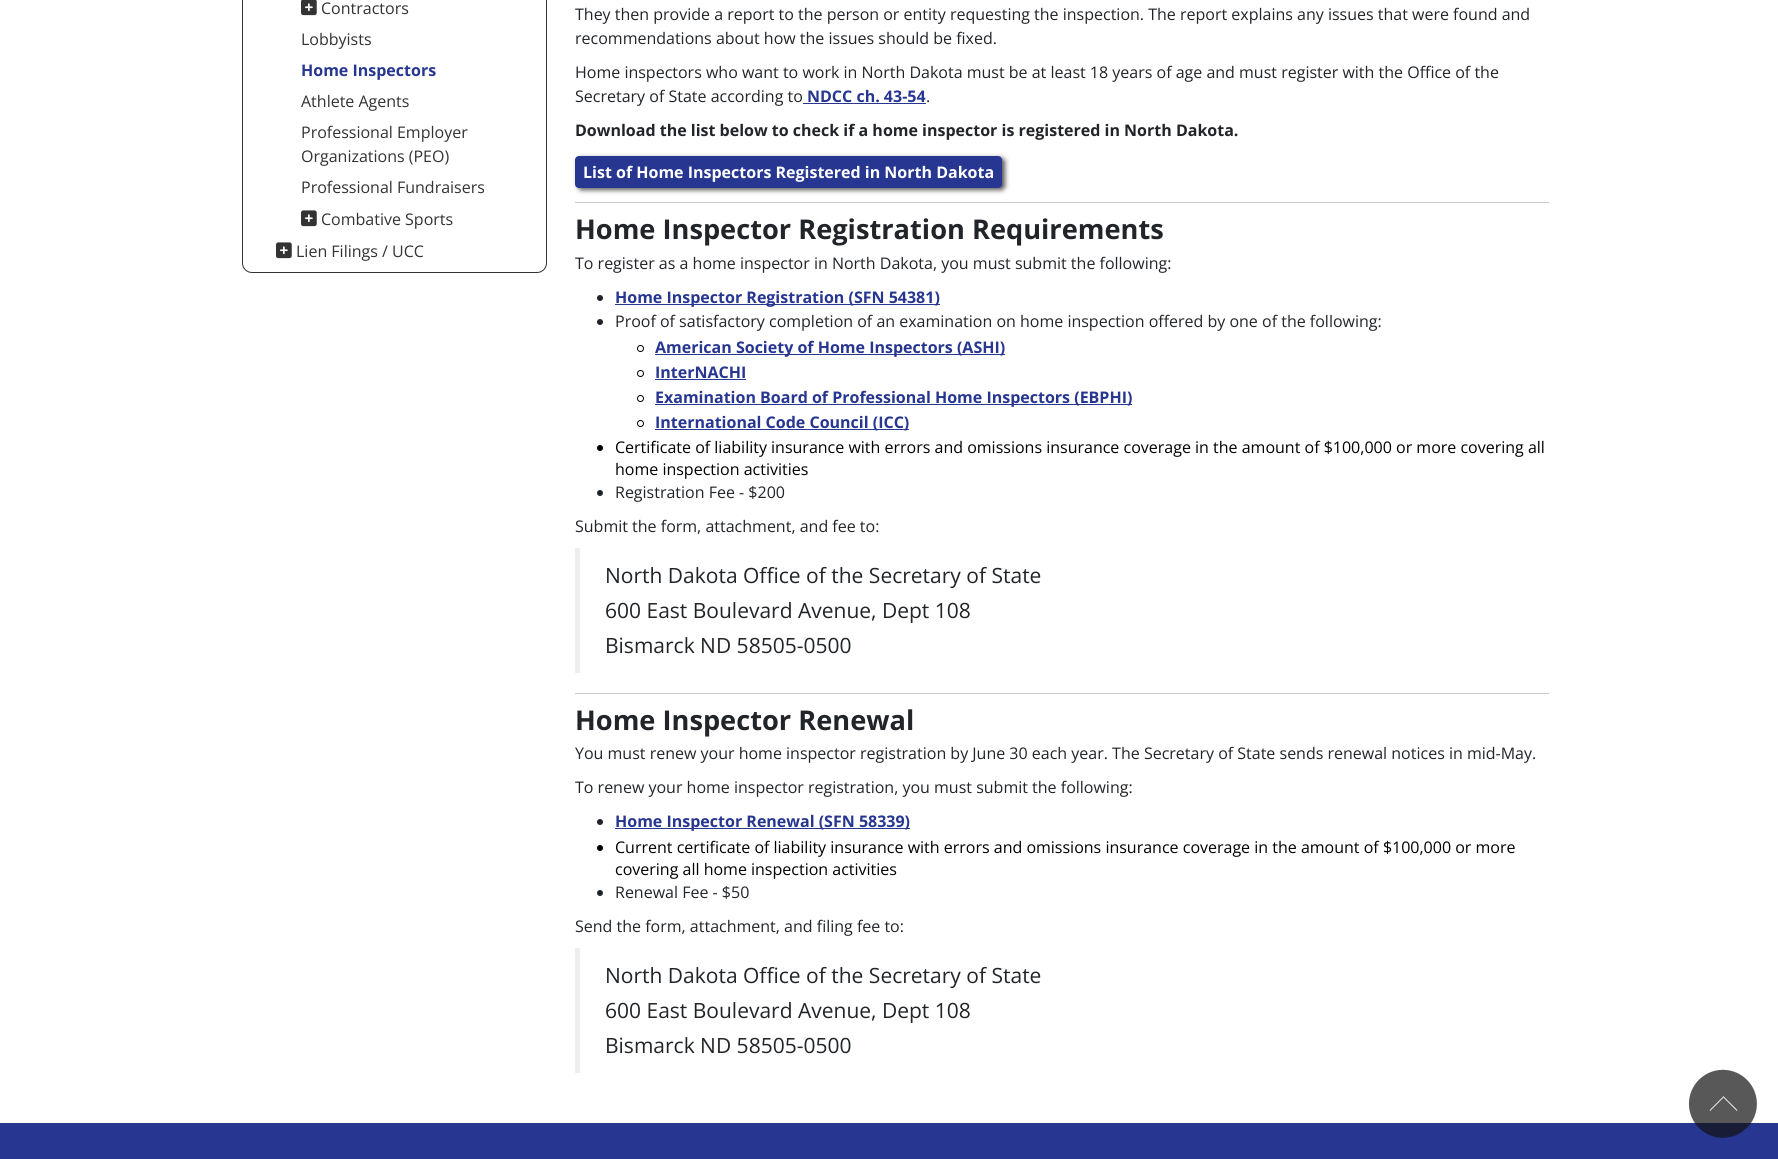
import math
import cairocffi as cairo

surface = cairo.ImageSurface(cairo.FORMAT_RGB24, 1778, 1159)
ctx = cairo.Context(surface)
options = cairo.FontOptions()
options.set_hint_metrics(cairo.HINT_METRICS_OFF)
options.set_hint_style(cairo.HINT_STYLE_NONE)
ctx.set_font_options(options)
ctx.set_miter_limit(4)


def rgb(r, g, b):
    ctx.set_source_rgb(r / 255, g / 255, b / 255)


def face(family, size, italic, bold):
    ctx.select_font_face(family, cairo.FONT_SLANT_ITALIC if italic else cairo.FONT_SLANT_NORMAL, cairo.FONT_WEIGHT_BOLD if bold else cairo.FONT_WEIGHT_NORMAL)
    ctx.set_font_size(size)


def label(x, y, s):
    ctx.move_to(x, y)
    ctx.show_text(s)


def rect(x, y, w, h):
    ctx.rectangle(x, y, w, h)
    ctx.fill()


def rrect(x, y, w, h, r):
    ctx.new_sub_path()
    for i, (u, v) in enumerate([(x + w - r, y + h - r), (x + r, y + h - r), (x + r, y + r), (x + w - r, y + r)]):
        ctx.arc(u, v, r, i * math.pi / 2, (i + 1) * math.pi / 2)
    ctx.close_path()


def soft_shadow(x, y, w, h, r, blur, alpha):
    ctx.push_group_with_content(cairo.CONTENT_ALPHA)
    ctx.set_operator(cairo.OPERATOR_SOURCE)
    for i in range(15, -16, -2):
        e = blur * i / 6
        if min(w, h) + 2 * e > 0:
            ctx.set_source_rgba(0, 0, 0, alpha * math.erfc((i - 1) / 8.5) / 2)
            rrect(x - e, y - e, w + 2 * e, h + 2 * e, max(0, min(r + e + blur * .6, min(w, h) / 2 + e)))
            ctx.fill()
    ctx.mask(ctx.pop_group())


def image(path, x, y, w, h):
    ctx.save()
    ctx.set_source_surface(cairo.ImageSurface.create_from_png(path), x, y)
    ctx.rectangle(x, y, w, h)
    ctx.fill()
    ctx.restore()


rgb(255, 255, 255)
ctx.paint()
rrect(242.5, -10.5, 304, 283, 9.5)
rgb(51, 51, 51)
ctx.set_line_width(1)
ctx.stroke()
image('image0.png', 301, 0, 16, 16)
face('Open Sans', 16, 0, 0)
label(321, 14, 'Contractors')
label(301, 45, 'Lobbyists')
face('Open Sans', 16, 0, 1)
rgb(39, 54, 145)
label(301, 76, 'Home Inspectors')
face('Open Sans', 16, 0, 0)
rgb(51, 51, 51)
label(301, 107, 'Athlete Agents')
label(301, 138, 'Professional Employer')
label(301, 162, 'Organizations (PEO)')
label(301, 193, 'Professional Fundraisers')
image('image1.png', 301, 210, 16, 17)
label(321, 225, 'Combative Sports')
image('image1.png', 276, 242, 16, 17)
label(296, 257, 'Lien Filings / UCC')
rgb(33, 37, 41)
label(575, 20, 'They then provide a report to the person or entity requesting the inspection. The report explains any issues that were found and')
label(575, 44, 'recommendations about how the issues should be fixed.')
label(575, 78, 'Home inspectors who want to work in North Dakota must be at least 18 years of age and must register with the Office of the')
label(575, 102, 'Secretary of State according to')
face('Open Sans', 16, 0, 1)
rgb(39, 54, 145)
label(807, 102, 'NDCC ch. 43-54')
rect(803, 103, 123, 1)
face('Open Sans', 16, 0, 0)
rgb(33, 37, 41)
label(926, 102, '.')
face('Open Sans', 16, 0, 1)
label(575, 136, 'Download the list below to check if a home inspector is registered in North Dakota.')
rgb(85, 85, 85)
soft_shadow(578, 158, 427, 32, 4, 2.5, 1)
rgb(39, 54, 145)
rrect(575, 156, 427, 32, 4)
ctx.fill()
rgb(255, 255, 255)
label(583, 178, 'List of Home Inspectors Registered in North Dakota')
rgb(200, 201, 202)
rect(575, 202, 974, 1)
face('Open Sans', 27.2, 0, 1)
rgb(33, 37, 41)
label(575, 239, 'Home Inspector Registration Requirements')
face('Open Sans', 16, 0, 0)
label(575, 269, 'To register as a home inspector in North Dakota, you must submit the following:')
ctx.new_path()
ctx.arc(600, 298, 3, 0, 2 * math.pi)
ctx.fill()
rgb(39, 54, 145)
rect(615, 304, 325, 1)
face('Open Sans', 16, 0, 1)
label(615, 303, 'Home Inspector Registration (SFN 54381)')
rgb(33, 37, 41)
ctx.new_path()
ctx.arc(600, 322, 3, 0, 2 * math.pi)
ctx.fill()
face('Open Sans', 16, 0, 0)
label(615, 327, 'Proof of satisfactory completion of an examination on home inspection offered by one of the following:')
ctx.new_path()
ctx.arc(640.5, 348.5, 3, 0, 2 * math.pi)
rgb(0, 0, 0)
ctx.stroke()
rgb(39, 54, 145)
rect(655, 354, 350, 1)
face('Open Sans', 16, 0, 1)
label(655, 353, 'American Society of Home Inspectors (ASHI)')
ctx.new_path()
ctx.arc(640.5, 373.5, 3, 0, 2 * math.pi)
rgb(0, 0, 0)
ctx.stroke()
rgb(39, 54, 145)
label(655, 378, 'InterNACHI')
rect(655, 379, 91, 1)
ctx.new_path()
ctx.arc(640.5, 398.5, 3, 0, 2 * math.pi)
rgb(0, 0, 0)
ctx.stroke()
rgb(39, 54, 145)
rect(655, 404, 477, 1)
label(655, 403, 'Examination Board of Professional Home Inspectors (EBPHI)')
ctx.new_path()
ctx.arc(640.5, 423.5, 3, 0, 2 * math.pi)
rgb(0, 0, 0)
ctx.stroke()
rgb(39, 54, 145)
rect(655, 429, 254, 1)
label(655, 428, 'International Code Council (ICC)')
rgb(0, 0, 0)
ctx.new_path()
ctx.arc(600, 448, 3, 0, 2 * math.pi)
ctx.fill()
face('Open Sans', 16, 0, 0)
label(615, 453, 'Certificate of liability insurance with errors and omissions insurance coverage in the amount of $100,000 or more covering all')
label(615, 475, 'home inspection activities')
rgb(33, 37, 41)
ctx.new_path()
ctx.arc(600, 493, 3, 0, 2 * math.pi)
ctx.fill()
label(615, 498, 'Registration Fee - $200')
label(575, 532, 'Submit the form, attachment, and fee to:')
rgb(238, 238, 238)
rect(575, 548, 5, 125)
face('Open Sans', 21, 0, 0)
rgb(33, 37, 41)
label(605, 583, 'North Dakota Office of the Secretary of State')
label(605, 618, '600 East Boulevard Avenue, Dept 108')
label(605, 653, 'Bismarck ND 58505-0500')
rgb(200, 201, 202)
rect(575, 693, 974, 1)
face('Open Sans', 27.2, 0, 1)
rgb(33, 37, 41)
label(575, 730, 'Home Inspector Renewal')
face('Open Sans', 16, 0, 0)
label(575, 759, 'You must renew your home inspector registration by June 30 each year. The Secretary of State sends renewal notices in mid-May.')
label(575, 793, 'To renew your home inspector registration, you must submit the following:')
ctx.new_path()
ctx.arc(600, 822, 3, 0, 2 * math.pi)
ctx.fill()
rgb(39, 54, 145)
rect(615, 828, 295, 1)
face('Open Sans', 16, 0, 1)
label(615, 827, 'Home Inspector Renewal (SFN 58339)')
rgb(0, 0, 0)
ctx.new_path()
ctx.arc(600, 848, 3, 0, 2 * math.pi)
ctx.fill()
face('Open Sans', 16, 0, 0)
label(615, 853, 'Current certificate of liability insurance with errors and omissions insurance coverage in the amount of $100,000 or more')
label(615, 875, 'covering all home inspection activities')
rgb(33, 37, 41)
ctx.new_path()
ctx.arc(600, 893, 3, 0, 2 * math.pi)
ctx.fill()
label(615, 898, 'Renewal Fee - $50')
label(575, 932, 'Send the form, attachment, and filing fee to:')
rgb(238, 238, 238)
rect(575, 948, 5, 125)
face('Open Sans', 21, 0, 0)
rgb(33, 37, 41)
label(605, 983, 'North Dakota Office of the Secretary of State')
label(605, 1018, '600 East Boulevard Avenue, Dept 108')
label(605, 1053, 'Bismarck ND 58505-0500')
rgb(39, 54, 145)
rect(0, 1123, 1778, 36)
image('image2.png', 1688, 1069, 69, 69)
surface.write_to_png('render.png')
